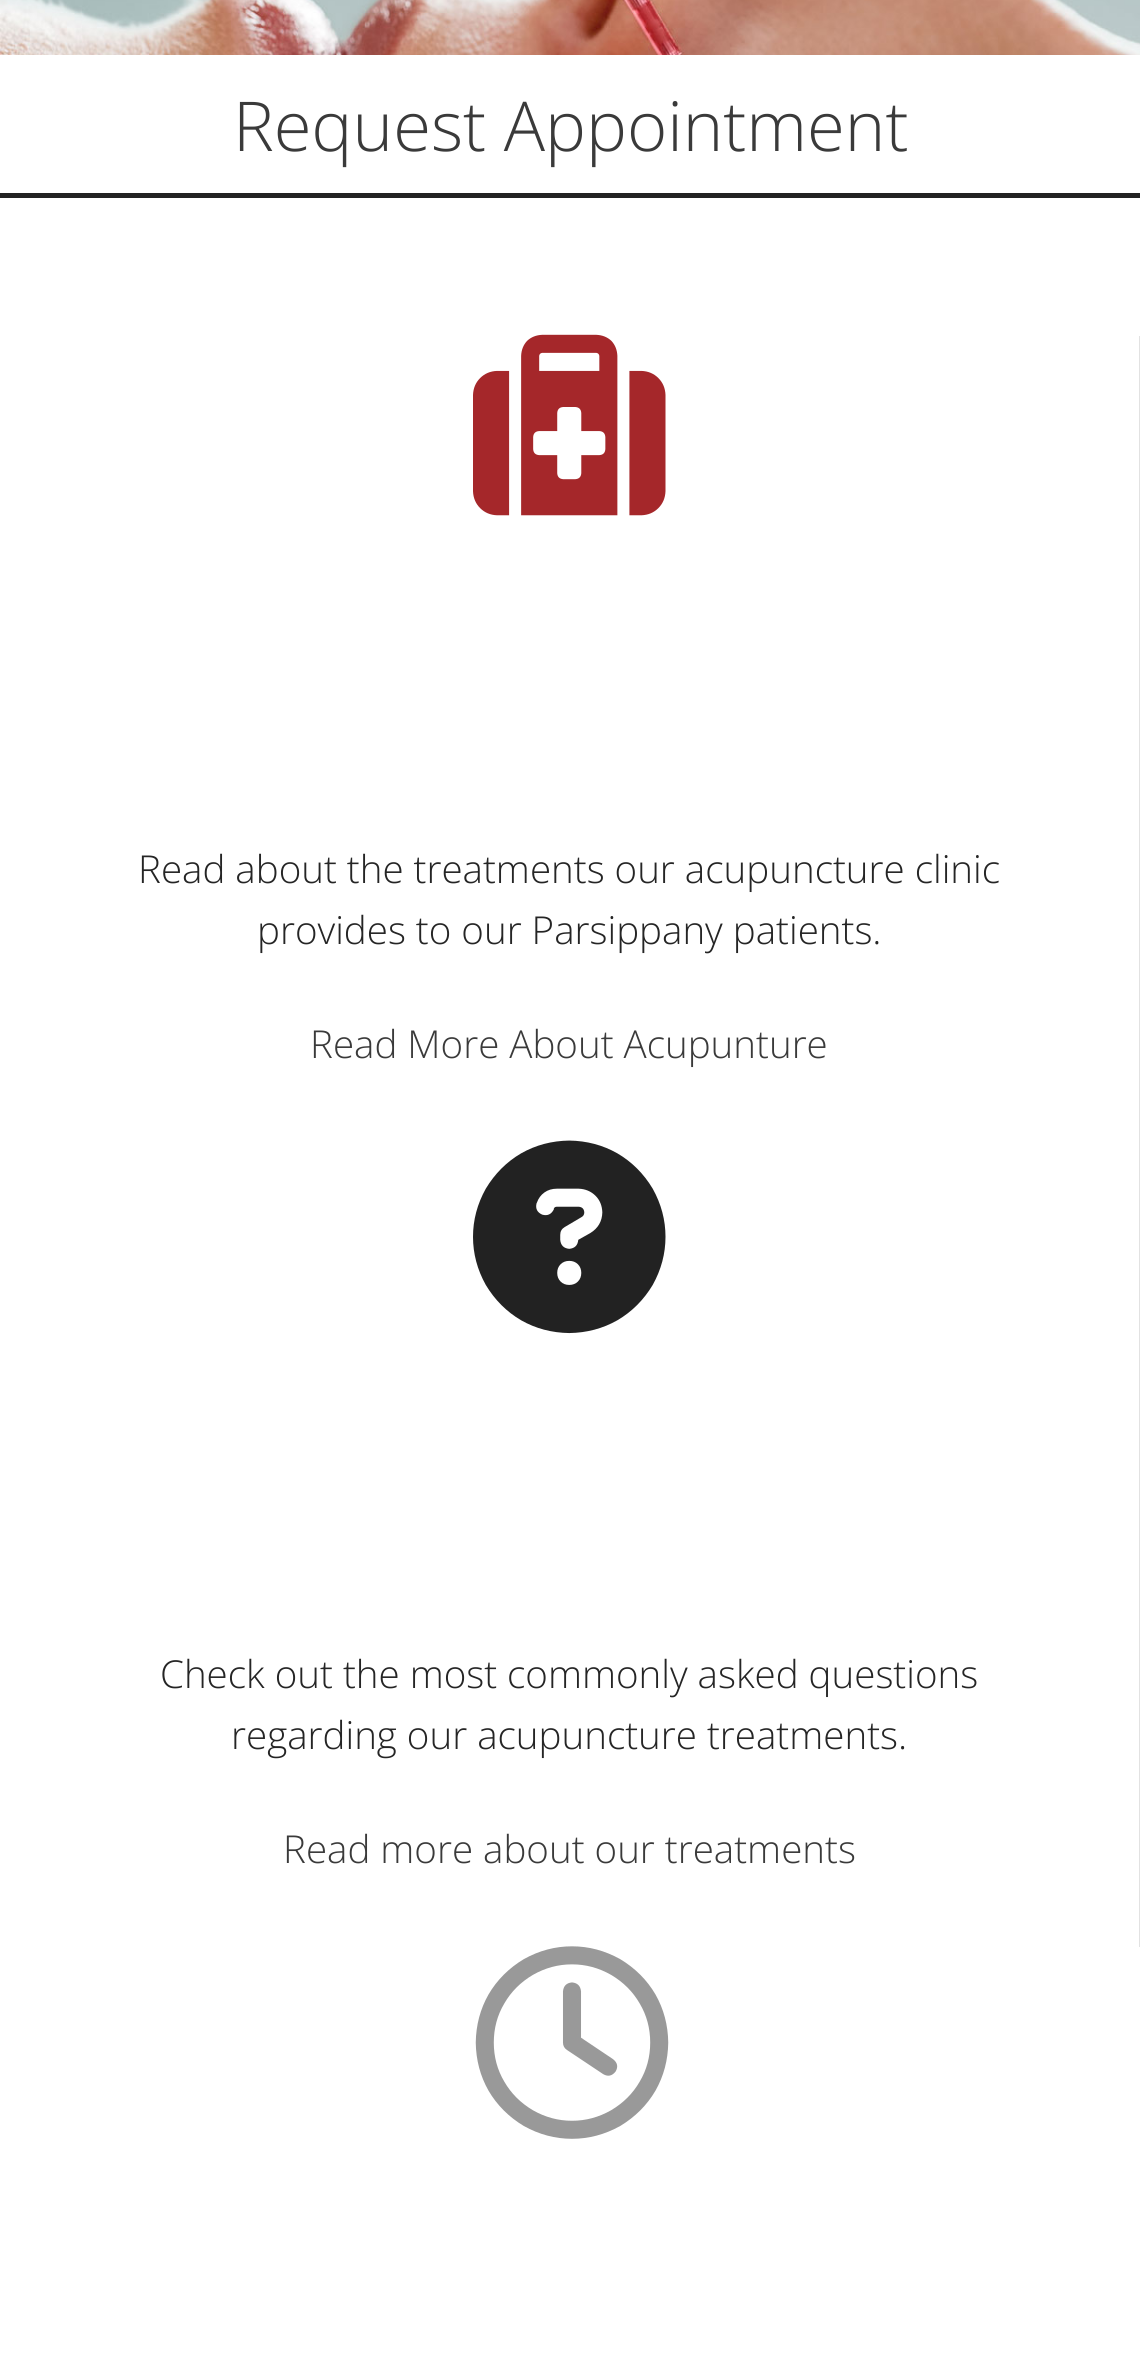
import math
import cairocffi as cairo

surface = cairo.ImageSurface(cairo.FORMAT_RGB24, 1140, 2371)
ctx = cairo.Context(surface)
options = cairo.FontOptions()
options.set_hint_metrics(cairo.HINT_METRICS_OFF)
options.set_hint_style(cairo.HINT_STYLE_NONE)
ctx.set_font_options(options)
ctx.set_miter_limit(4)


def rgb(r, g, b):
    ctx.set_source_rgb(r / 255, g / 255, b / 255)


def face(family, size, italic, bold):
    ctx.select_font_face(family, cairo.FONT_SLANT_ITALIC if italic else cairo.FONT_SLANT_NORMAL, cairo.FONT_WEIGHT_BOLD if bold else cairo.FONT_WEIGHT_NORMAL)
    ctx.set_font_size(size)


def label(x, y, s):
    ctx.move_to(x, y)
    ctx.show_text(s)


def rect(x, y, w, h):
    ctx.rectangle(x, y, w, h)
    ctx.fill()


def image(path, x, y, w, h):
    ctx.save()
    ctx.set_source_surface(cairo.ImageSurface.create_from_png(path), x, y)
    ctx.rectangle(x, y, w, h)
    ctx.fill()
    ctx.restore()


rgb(255, 255, 255)
ctx.paint()
image('image0.png', 0, 0, 1140, 55)
rgb(34, 34, 34)
rect(0, 193, 1140, 5)
face('Open Sans Light', 68.75, 0, 0)
rgb(58, 58, 58)
label(233, 151, 'Request Appointment')
rgb(226, 226, 226)
rect(1139, 336, 1, 1611)
image('image1.png', 473, 334, 193, 182)
face('Open Sans Light', 38.5, 0, 0)
rgb(37, 37, 37)
label(138, 883, 'Read about the treatments our acupuncture clinic')
label(257, 944, 'provides to our Parsippany patients.')
rgb(58, 58, 58)
label(310, 1058, 'Read More About Acupunture')
image('image2.png', 473, 1140, 193, 194)
rgb(37, 37, 37)
label(160, 1688, 'Check out the most commonly asked questions')
label(231, 1749, 'regarding our acupuncture treatments.')
rgb(58, 58, 58)
label(283, 1863, 'Read more about our treatments')
image('image3.png', 475, 1946, 194, 193)
surface.write_to_png('render.png')
